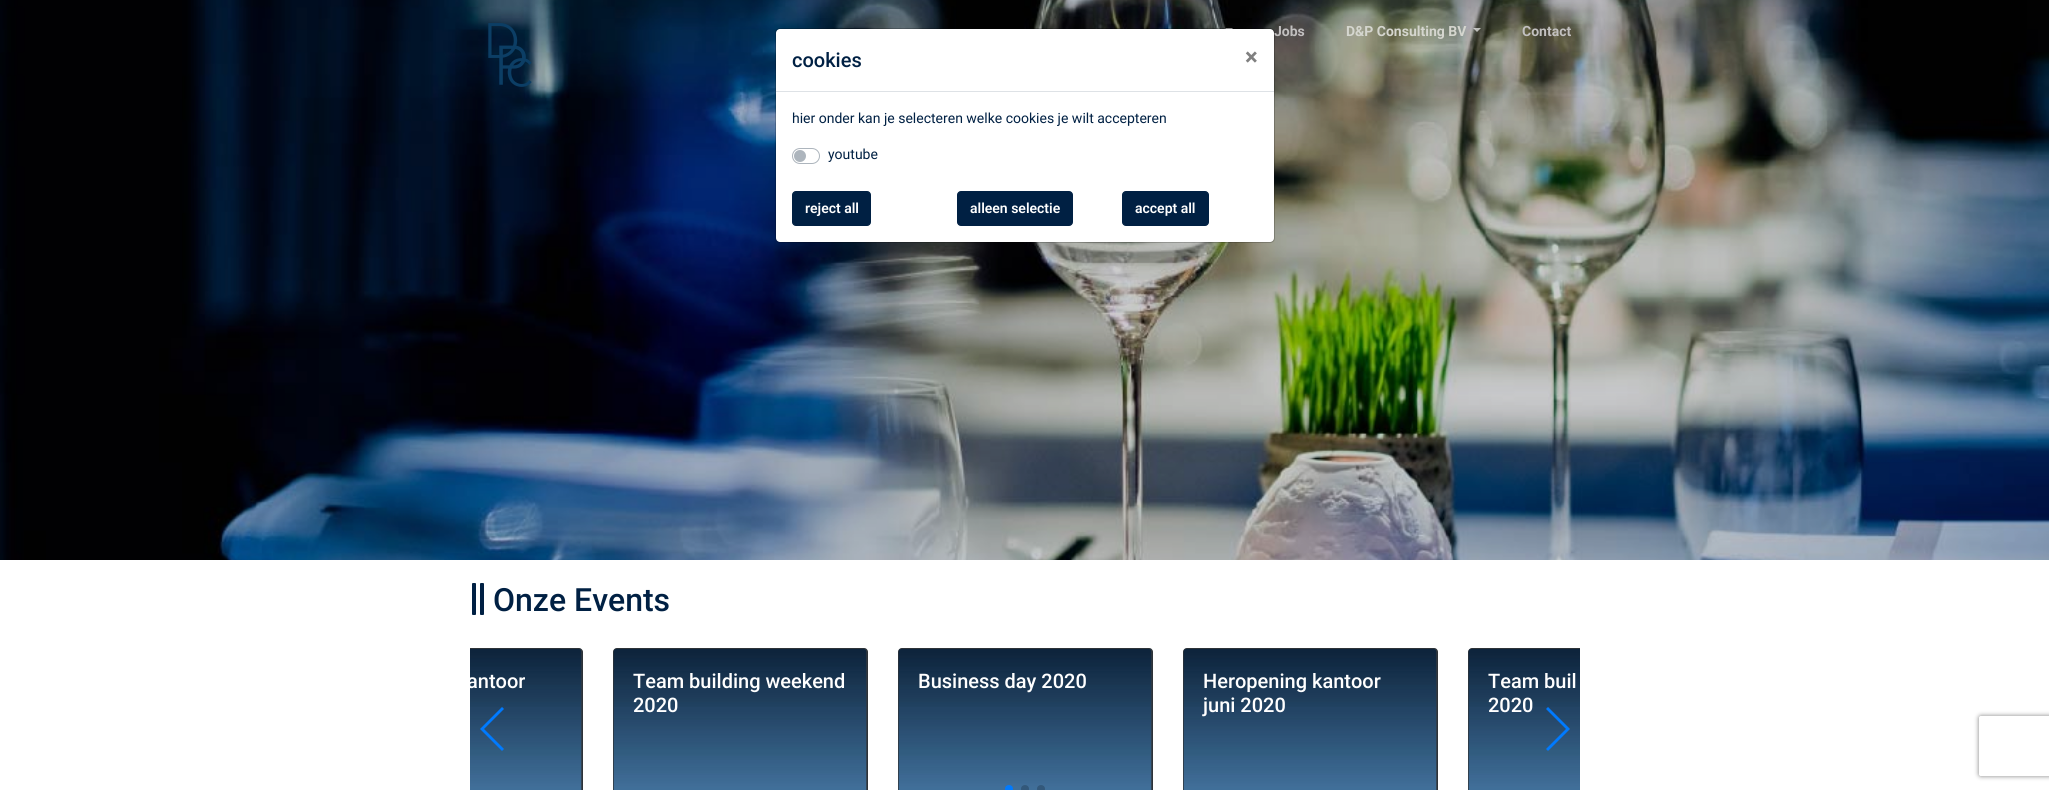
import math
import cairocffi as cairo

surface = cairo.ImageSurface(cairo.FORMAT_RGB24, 2049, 790)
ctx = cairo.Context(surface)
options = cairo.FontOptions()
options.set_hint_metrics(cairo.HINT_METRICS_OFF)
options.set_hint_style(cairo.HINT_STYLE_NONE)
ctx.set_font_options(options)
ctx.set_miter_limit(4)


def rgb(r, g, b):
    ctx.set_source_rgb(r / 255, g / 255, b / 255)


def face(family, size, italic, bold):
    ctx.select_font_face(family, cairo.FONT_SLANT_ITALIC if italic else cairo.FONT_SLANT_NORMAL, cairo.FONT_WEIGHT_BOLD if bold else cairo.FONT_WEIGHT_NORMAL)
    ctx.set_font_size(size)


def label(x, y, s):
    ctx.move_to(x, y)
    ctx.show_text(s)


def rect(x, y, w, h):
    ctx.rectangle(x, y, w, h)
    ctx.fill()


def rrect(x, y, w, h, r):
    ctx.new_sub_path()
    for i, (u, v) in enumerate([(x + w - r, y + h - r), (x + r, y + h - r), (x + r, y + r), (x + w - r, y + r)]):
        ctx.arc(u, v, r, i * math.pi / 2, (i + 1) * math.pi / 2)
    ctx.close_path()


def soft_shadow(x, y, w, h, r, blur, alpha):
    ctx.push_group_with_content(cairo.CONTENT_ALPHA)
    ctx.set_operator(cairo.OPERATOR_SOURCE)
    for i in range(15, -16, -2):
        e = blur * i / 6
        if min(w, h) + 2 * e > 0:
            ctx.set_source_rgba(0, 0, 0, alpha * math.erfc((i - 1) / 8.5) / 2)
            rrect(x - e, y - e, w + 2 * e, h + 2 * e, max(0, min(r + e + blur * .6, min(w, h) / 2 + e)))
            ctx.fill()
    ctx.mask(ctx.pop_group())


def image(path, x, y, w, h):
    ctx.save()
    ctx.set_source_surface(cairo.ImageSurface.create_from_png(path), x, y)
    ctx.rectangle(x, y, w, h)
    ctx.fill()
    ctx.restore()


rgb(255, 255, 255)
ctx.paint()
image('image0.png', 0, 0, 2049, 560)
image('image1.png', 488, 23, 44, 64)
ctx.set_source_rgba(1, 1, 1, 0.65)
ctx.new_path()
ctx.move_to(1225, 28)
ctx.line_to(1233, 28)
ctx.line_to(1229, 32)
ctx.close_path()
ctx.fill()
face('Roboto', 14, 0, 1)
rgb(194, 192, 192)
label(1274, 36, 'Jobs')
rgb(213, 214, 207)
label(1346, 36, 'D&P Consulting BV')
ctx.set_source_rgba(1, 1, 1, 0.65)
ctx.new_path()
ctx.move_to(1473, 28)
ctx.line_to(1481, 28)
ctx.line_to(1477, 32)
ctx.close_path()
ctx.fill()
rgb(194, 192, 192)
label(1522, 36, 'Contact')
rgb(255, 255, 255)
rrect(776, 29, 498, 213, 4)
ctx.fill()
rrect(775.5, 28.5, 499, 214, 4.5)
ctx.set_source_rgba(0, 0, 0, 0.2)
ctx.set_line_width(1)
ctx.stroke()
rgb(222, 226, 230)
rect(776, 91, 498, 1)
face('Roboto Medium', 20, 0, 0)
rgb(0, 32, 67)
label(792, 67, 'cookies')
face('Roboto', 24, 0, 1)
rgb(128, 128, 128)
label(1245, 65, '×')
face('Roboto', 14, 0, 0)
rgb(0, 32, 67)
label(792, 123, 'hier onder kan je selecteren welke cookies je wilt accepteren')
rrect(792.5, 148.5, 27, 15, 7.5)
rgb(173, 181, 189)
ctx.stroke()
rgb(0, 32, 67)
label(828, 159, 'youtube')
rgb(173, 181, 189)
ctx.new_path()
ctx.arc(800, 156, 6, 0, 2 * math.pi)
ctx.fill()
rgb(0, 32, 67)
rrect(792.5, 191.5, 78, 34, 3.5)
ctx.fill_preserve()
ctx.stroke()
face('Roboto SemiBold', 14, 0, 0)
rgb(255, 255, 255)
label(805, 213, 'reject all')
rgb(0, 32, 67)
rrect(957.5, 191.5, 115, 34, 3.5)
ctx.fill_preserve()
ctx.stroke()
rgb(255, 255, 255)
label(970, 213, 'alleen selectie')
rgb(0, 32, 67)
rrect(1122.5, 191.5, 86, 34, 3.5)
ctx.fill_preserve()
ctx.stroke()
rgb(255, 255, 255)
label(1135, 213, 'accept all')
image('image2.png', 472, 583, 12, 32)
face('Roboto Medium', 32, 0, 0)
rgb(0, 32, 67)
label(493, 611, 'Onze Events')
rgb(52, 58, 64)
ctx.new_path()
ctx.move_to(470, 648)
ctx.line_to(579, 648)
ctx.curve_to(581, 648, 583, 650, 583, 652)
ctx.line_to(583, 790)
ctx.curve_to(583, 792, 581, 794, 579, 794)
ctx.line_to(470, 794)
ctx.close_path()
ctx.fill()
ctx.save()
ctx.rectangle(470, 648, 1110, 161)
ctx.clip()
rrect(328.5, 648.5, 254, 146, 3.5)
ctx.set_source_rgba(0, 0, 0, 0.12)
ctx.stroke()
ctx.restore()
image('image3.png', 470, 649, 112, 141)
ctx.save()
ctx.rectangle(470, 648, 1110, 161)
ctx.clip()
face('Roboto Medium', 20, 0, 0)
rgb(255, 255, 255)
label(467, 688, 'antoor')
ctx.restore()
rrect(613, 648, 255, 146, 4)
ctx.fill()
rrect(613.5, 648.5, 254, 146, 3.5)
ctx.set_source_rgba(0, 0, 0, 0.12)
ctx.stroke()
image('image4.png', 613, 649, 254, 141)
face('Roboto Medium', 20, 0, 0)
rgb(255, 255, 255)
label(633, 688, 'Team building weekend')
label(633, 712, '2020')
rgb(52, 58, 64)
rrect(898, 648, 255, 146, 4)
ctx.fill()
rrect(898.5, 648.5, 254, 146, 3.5)
ctx.set_source_rgba(0, 0, 0, 0.12)
ctx.stroke()
image('image4.png', 898, 649, 254, 141)
rgb(255, 255, 255)
label(918, 688, 'Business day 2020')
rgb(52, 58, 64)
rrect(1183, 648, 255, 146, 4)
ctx.fill()
rrect(1183.5, 648.5, 254, 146, 3.5)
ctx.set_source_rgba(0, 0, 0, 0.12)
ctx.stroke()
image('image4.png', 1183, 649, 254, 141)
rgb(255, 255, 255)
label(1203, 688, 'Heropening kantoor')
label(1203, 712, 'juni 2020')
rgb(52, 58, 64)
ctx.new_path()
ctx.move_to(1472, 648)
ctx.line_to(1580, 648)
ctx.line_to(1580, 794)
ctx.line_to(1472, 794)
ctx.curve_to(1470, 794, 1468, 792, 1468, 790)
ctx.line_to(1468, 652)
ctx.curve_to(1468, 650, 1470, 648, 1472, 648)
ctx.close_path()
ctx.fill()
ctx.save()
ctx.rectangle(470, 648, 1110, 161)
ctx.clip()
rrect(1468.5, 648.5, 254, 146, 3.5)
ctx.set_source_rgba(0, 0, 0, 0.12)
ctx.stroke()
ctx.restore()
image('image5.png', 1468, 649, 112, 141)
rgb(255, 255, 255)
label(1488, 688, 'Team buil')
label(1488, 712, '2020')
rgb(0, 122, 255)
ctx.new_path()
ctx.move_to(480, 729)
ctx.line_to(502, 707)
ctx.line_to(504, 709)
ctx.line_to(484, 729)
ctx.line_to(504, 749)
ctx.line_to(502, 751)
ctx.close_path()
ctx.fill()
ctx.new_path()
ctx.move_to(1570, 729)
ctx.line_to(1548, 751)
ctx.line_to(1546, 749)
ctx.line_to(1566, 729)
ctx.line_to(1546, 709)
ctx.line_to(1548, 707)
ctx.close_path()
ctx.fill()
ctx.arc(1009, 789, 4, 0, 2 * math.pi)
ctx.fill()
rgb(51, 88, 122)
ctx.arc(1025, 789, 4, 0, 2 * math.pi)
ctx.fill()
ctx.arc(1041, 789, 4, 0, 2 * math.pi)
ctx.fill()
ctx.save()
ctx.set_fill_rule(cairo.FILL_RULE_EVEN_ODD)
ctx.new_path()
ctx.move_to(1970, 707)
ctx.line_to(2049, 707)
ctx.line_to(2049, 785)
ctx.line_to(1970, 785)
ctx.close_path()
ctx.move_to(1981, 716)
ctx.line_to(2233, 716)
ctx.curve_to(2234, 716, 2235, 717, 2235, 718)
ctx.line_to(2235, 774)
ctx.curve_to(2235, 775, 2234, 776, 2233, 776)
ctx.line_to(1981, 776)
ctx.curve_to(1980, 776, 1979, 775, 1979, 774)
ctx.line_to(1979, 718)
ctx.curve_to(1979, 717, 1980, 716, 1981, 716)
ctx.close_path()
ctx.clip()
rgb(128, 128, 128)
soft_shadow(1979, 716, 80, 60, 2, 2.5, 1)
ctx.restore()
surface.write_to_png('render.png')
